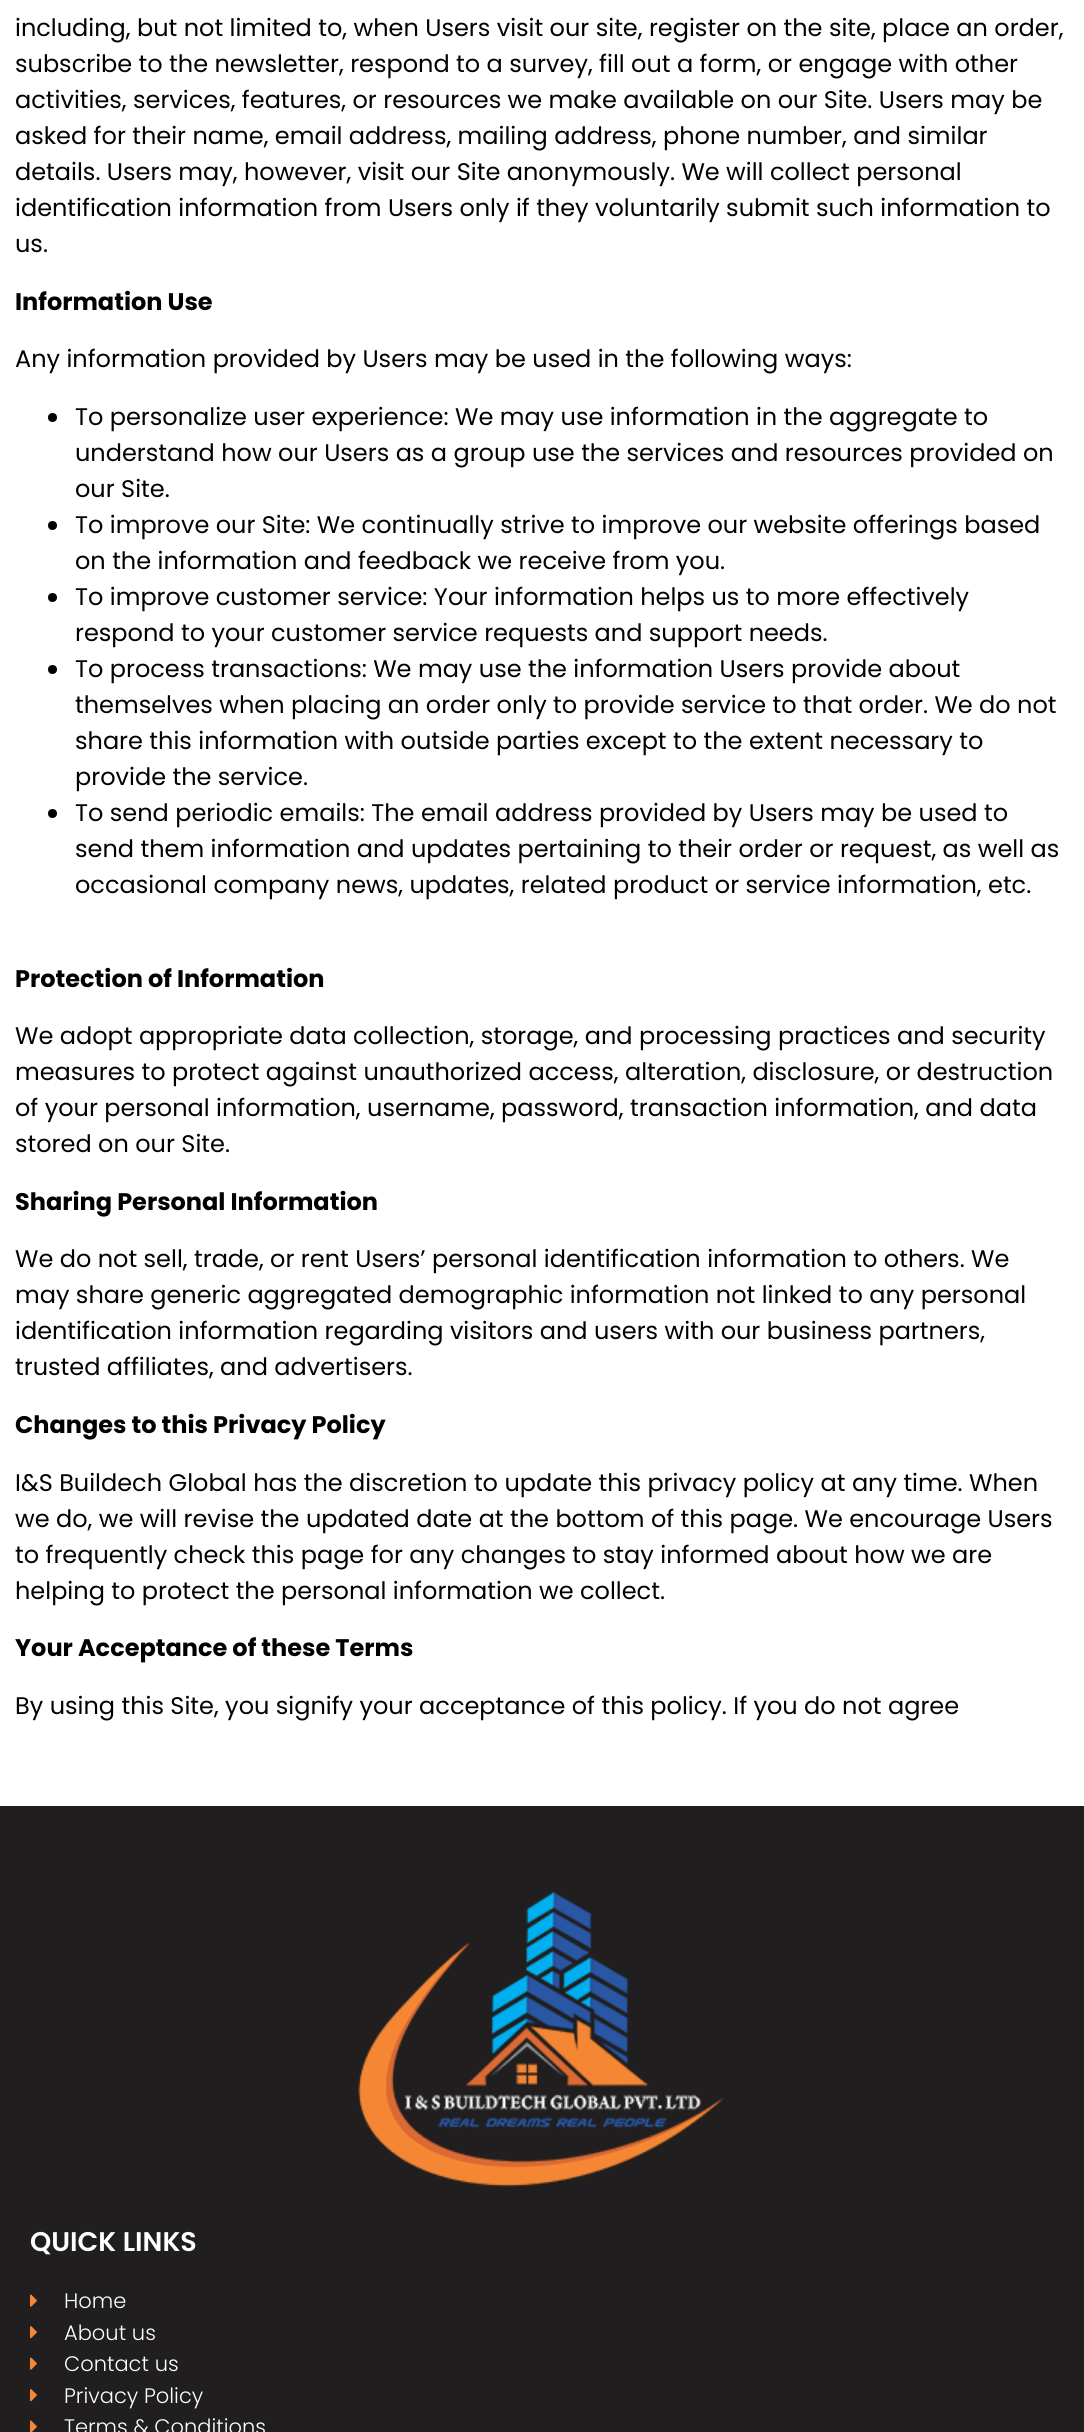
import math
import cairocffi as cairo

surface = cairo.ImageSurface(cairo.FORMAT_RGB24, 1084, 2432)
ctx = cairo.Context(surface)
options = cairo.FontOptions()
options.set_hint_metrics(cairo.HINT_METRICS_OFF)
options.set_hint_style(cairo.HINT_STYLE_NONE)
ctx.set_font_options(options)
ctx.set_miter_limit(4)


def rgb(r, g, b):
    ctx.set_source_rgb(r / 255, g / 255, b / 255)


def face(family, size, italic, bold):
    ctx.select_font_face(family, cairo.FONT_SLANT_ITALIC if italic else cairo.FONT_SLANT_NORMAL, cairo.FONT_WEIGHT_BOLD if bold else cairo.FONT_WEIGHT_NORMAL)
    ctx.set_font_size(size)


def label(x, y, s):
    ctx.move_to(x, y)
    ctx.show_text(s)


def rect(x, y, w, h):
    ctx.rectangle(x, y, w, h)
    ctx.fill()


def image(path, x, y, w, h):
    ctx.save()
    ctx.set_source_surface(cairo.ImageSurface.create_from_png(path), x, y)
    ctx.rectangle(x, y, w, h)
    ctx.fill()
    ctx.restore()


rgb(255, 255, 255)
ctx.paint()
face('Poppins', 24, 0, 0)
rgb(0, 0, 0)
label(15, 36, 'including, but not limited to, when Users visit our site, register on the site, place an order,')
label(15, 72, 'subscribe to the newsletter, respond to a survey, fill out a form, or engage with other')
label(15, 108, 'activities, services, features, or resources we make available on our Site. Users may be')
label(15, 144, 'asked for their name, email address, mailing address, phone number, and similar')
label(15, 180, 'details. Users may, however, visit our Site anonymously. We will collect personal')
label(15, 216, 'identification information from Users only if they voluntarily submit such information to')
label(15, 252, 'us.')
face('Poppins', 24, 0, 1)
label(15, 310, 'Information Use')
face('Poppins', 24, 0, 0)
label(15, 367, 'Any information provided by Users may be used in the following ways:')
ctx.new_path()
ctx.arc(52.5, 417.5, 4.5, 0, 2 * math.pi)
ctx.fill()
label(75, 425, 'To personalize user experience: We may use information in the aggregate to')
label(75, 461, 'understand how our Users as a group use the services and resources provided on')
label(75, 497, 'our Site.')
ctx.new_path()
ctx.arc(52.5, 525.5, 4.5, 0, 2 * math.pi)
ctx.fill()
label(75, 533, 'To improve our Site: We continually strive to improve our website offerings based')
label(75, 569, 'on the information and feedback we receive from you.')
ctx.new_path()
ctx.arc(52.5, 597.5, 4.5, 0, 2 * math.pi)
ctx.fill()
label(75, 605, 'To improve customer service: Your information helps us to more effectively')
label(75, 641, 'respond to your customer service requests and support needs.')
ctx.new_path()
ctx.arc(52.5, 669.5, 4.5, 0, 2 * math.pi)
ctx.fill()
label(75, 677, 'To process transactions: We may use the information Users provide about')
label(75, 713, 'themselves when placing an order only to provide service to that order. We do not')
label(75, 749, 'share this information with outside parties except to the extent necessary to')
label(75, 785, 'provide the service.')
ctx.new_path()
ctx.arc(52.5, 813.5, 4.5, 0, 2 * math.pi)
ctx.fill()
label(75, 821, 'To send periodic emails: The email address provided by Users may be used to')
label(75, 857, 'send them information and updates pertaining to their order or request, as well as')
label(75, 893, 'occasional company news, updates, related product or service information, etc.')
face('Poppins', 24, 0, 1)
label(15, 987, 'Protection of Information')
face('Poppins', 24, 0, 0)
label(15, 1044, 'We adopt appropriate data collection, storage, and processing practices and security')
label(15, 1080, 'measures to protect against unauthorized access, alteration, disclosure, or destruction')
label(15, 1116, 'of your personal information, username, password, transaction information, and data')
label(15, 1152, 'stored on our Site.')
face('Poppins', 24, 0, 1)
label(15, 1210, 'Sharing Personal Information')
face('Poppins', 24, 0, 0)
label(15, 1267, 'We do not sell, trade, or rent Users’ personal identification information to others. We')
label(15, 1303, 'may share generic aggregated demographic information not linked to any personal')
label(15, 1339, 'identification information regarding visitors and users with our business partners,')
label(15, 1375, 'trusted affiliates, and advertisers.')
face('Poppins', 24, 0, 1)
label(15, 1433, 'Changes to this Privacy Policy')
face('Poppins', 24, 0, 0)
label(15, 1491, 'I&S Buildech Global has the discretion to update this privacy policy at any time. When')
label(15, 1527, 'we do, we will revise the updated date at the bottom of this page. We encourage Users')
label(15, 1563, 'to frequently check this page for any changes to stay informed about how we are')
label(15, 1599, 'helping to protect the personal information we collect.')
face('Poppins', 24, 0, 1)
label(15, 1656, 'Your Acceptance of these Terms')
face('Poppins', 24, 0, 0)
label(15, 1714, 'By using this Site, you signify your acceptance of this policy. If you do not agree')
rgb(32, 30, 30)
rect(0, 1806, 1084, 626)
image('image0.png', 358, 1892, 367, 295)
face('Poppins SemiBold', 27, 0, 0)
rgb(255, 255, 255)
label(30, 2251, 'QUICK LINKS')
image('image1.png', 30, 2294, 7, 13)
face('Poppins Light', 21, 0, 0)
label(64, 2308, 'Home')
image('image2.png', 30, 2326, 7, 13)
label(64, 2340, 'About us')
image('image1.png', 30, 2357, 7, 13)
label(64, 2371, 'Contact us')
image('image2.png', 30, 2389, 7, 13)
label(64, 2403, 'Privacy Policy')
image('image3.png', 30, 2420, 7, 12)
label(64, 2434, 'Terms & Conditions')
surface.write_to_png('render.png')
